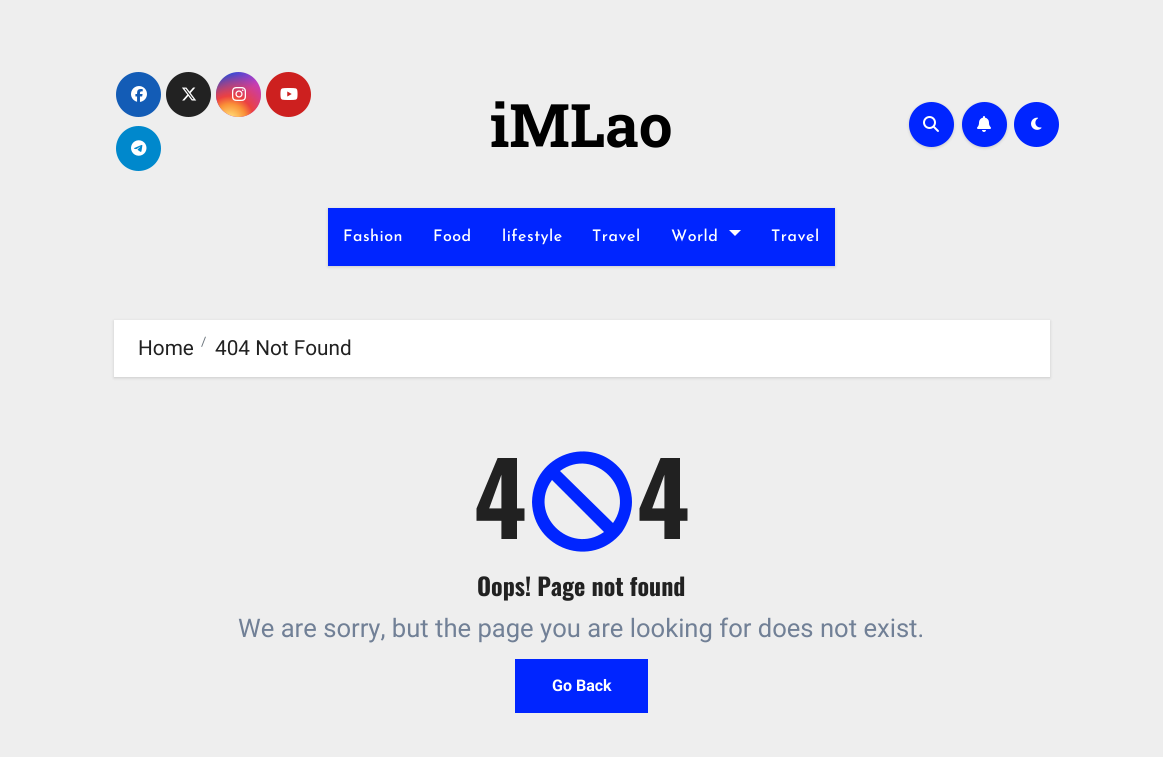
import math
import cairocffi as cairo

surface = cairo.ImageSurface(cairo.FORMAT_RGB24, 1163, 757)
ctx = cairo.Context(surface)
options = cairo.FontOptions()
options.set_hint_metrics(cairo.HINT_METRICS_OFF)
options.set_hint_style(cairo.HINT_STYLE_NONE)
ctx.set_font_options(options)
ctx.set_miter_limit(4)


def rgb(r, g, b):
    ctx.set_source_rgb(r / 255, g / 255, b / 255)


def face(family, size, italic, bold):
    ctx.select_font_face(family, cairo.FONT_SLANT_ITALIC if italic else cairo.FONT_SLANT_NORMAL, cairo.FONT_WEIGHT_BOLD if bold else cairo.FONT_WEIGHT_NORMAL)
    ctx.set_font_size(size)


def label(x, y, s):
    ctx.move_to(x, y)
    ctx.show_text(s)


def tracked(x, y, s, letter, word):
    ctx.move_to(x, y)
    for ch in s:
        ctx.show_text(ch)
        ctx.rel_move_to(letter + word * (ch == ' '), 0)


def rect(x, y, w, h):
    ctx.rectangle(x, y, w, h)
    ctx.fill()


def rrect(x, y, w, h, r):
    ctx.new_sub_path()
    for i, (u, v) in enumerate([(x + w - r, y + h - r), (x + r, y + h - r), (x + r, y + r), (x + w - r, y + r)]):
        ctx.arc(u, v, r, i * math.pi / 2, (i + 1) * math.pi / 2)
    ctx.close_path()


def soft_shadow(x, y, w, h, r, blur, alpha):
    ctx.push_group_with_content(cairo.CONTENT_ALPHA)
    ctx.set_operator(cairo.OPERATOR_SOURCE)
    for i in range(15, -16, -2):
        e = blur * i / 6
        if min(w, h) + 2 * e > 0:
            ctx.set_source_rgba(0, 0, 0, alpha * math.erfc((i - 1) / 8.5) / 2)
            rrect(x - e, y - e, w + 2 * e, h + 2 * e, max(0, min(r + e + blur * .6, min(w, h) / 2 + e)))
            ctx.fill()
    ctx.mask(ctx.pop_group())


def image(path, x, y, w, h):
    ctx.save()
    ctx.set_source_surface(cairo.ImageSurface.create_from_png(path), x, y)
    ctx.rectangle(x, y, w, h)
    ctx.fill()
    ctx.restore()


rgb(238, 238, 238)
ctx.paint()
rgb(19, 92, 182)
ctx.arc(138.5, 94.5, 22.5, 0, 2 * math.pi)
ctx.fill()
image('image0.png', 131, 86, 16, 16)
rgb(34, 34, 34)
ctx.arc(188.5, 94.5, 22.5, 0, 2 * math.pi)
ctx.fill()
image('image1.png', 182, 87, 15, 14)
gradient = cairo.LinearGradient(216, 72, 261, 117)
gradient.add_color_stop_rgba(0.12, 0.137, 0.294, 0.843, 1)
gradient.add_color_stop_rgba(0.58, 0.765, 0.235, 0.745, 1)
ctx.set_source(gradient)
ctx.arc(238.5, 94.5, 22.5, 0, 2 * math.pi)
ctx.fill()
gradient = cairo.RadialGradient(230, 120, 0, 230, 120, 57)
gradient.add_color_stop_rgba(0, 1, 0.882, 0.49, 1)
gradient.add_color_stop_rgba(0.1, 1, 0.804, 0.412, 1)
gradient.add_color_stop_rgba(0.28, 0.98, 0.569, 0.216, 1)
gradient.add_color_stop_rgba(0.42, 0.922, 0.255, 0.255, 1)
gradient.add_color_stop_rgba(0.82, 0.922, 0.255, 0.255, 0)
ctx.set_source(gradient)
ctx.arc(238.5, 94.5, 22.5, 0, 2 * math.pi)
ctx.fill()
image('image2.png', 232, 87, 14, 14)
rgb(205, 32, 31)
ctx.arc(288.5, 94.5, 22.5, 0, 2 * math.pi)
ctx.fill()
image('image3.png', 280, 88, 18, 12)
rgb(0, 136, 204)
ctx.arc(138.5, 148.5, 22.5, 0, 2 * math.pi)
ctx.fill()
image('image4.png', 131, 140, 16, 16)
face('Roboto Slab', 60, 0, 1)
rgb(0, 0, 0)
label(490, 147, 'iMLao')
rgb(0, 0, 0)
soft_shadow(909, 103, 45, 45, 22.5, 1.5, 0.15)
rgb(0, 37, 255)
ctx.arc(931.5, 124.5, 22.5, 0, 2 * math.pi)
ctx.fill()
image('image5.png', 923, 116, 16, 16)
rgb(0, 0, 0)
soft_shadow(962, 103, 45, 45, 22.5, 1.5, 0.15)
rgb(0, 37, 255)
ctx.arc(984.5, 124.5, 22.5, 0, 2 * math.pi)
ctx.fill()
image('image6.png', 977, 116, 14, 16)
ctx.arc(1036.5, 124.5, 22.5, 0, 2 * math.pi)
ctx.fill()
image('image7.png', 1031, 117, 11, 13)
rgb(0, 0, 0)
soft_shadow(328, 209, 507, 58, 0, 1.5, 0.15)
rgb(0, 37, 255)
rect(328, 208, 507, 58)
face('Josefin Sans Medium', 16, 0, 0)
rgb(255, 255, 255)
tracked(343, 241, 'Fashion', 0.5, 0)
tracked(433, 241, 'Food', 0.5, 0)
tracked(502, 241, 'lifestyle', 0.5, 0)
tracked(592, 241, 'Travel', 0.5, 0)
tracked(671, 241, 'World', 0.5, 0)
ctx.new_path()
ctx.move_to(729, 230)
ctx.line_to(741, 230)
ctx.line_to(735, 236)
ctx.close_path()
ctx.fill()
tracked(771, 241, 'Travel', 0.5, 0)
rgb(0, 0, 0)
soft_shadow(114, 321, 936, 57, 0, 1.5, 0.15)
rgb(255, 255, 255)
rect(114, 320, 936, 57)
face('Roboto', 20.75, 0, 0)
rgb(33, 33, 33)
label(138, 355, 'Home')
face('Roboto', 13, 0, 0)
rgb(108, 117, 125)
label(201, 346, '/')
face('Roboto', 20.75, 0, 0)
rgb(33, 33, 33)
label(215, 355, '404 Not Found')
face('Oswald', 100, 0, 1)
label(474, 539, '4')
rgb(0, 37, 255)
ctx.new_path()
ctx.move_to(604, 532)
ctx.line_to(552, 480)
ctx.curve_to(527, 514, 570, 556, 604, 532)
ctx.close_path()
ctx.move_to(613, 523)
ctx.curve_to(637, 489, 594, 446, 560, 471)
ctx.close_path()
ctx.move_to(532, 502)
ctx.curve_to(533, 454, 592, 433, 622, 471)
ctx.curve_to(628, 480, 632, 491, 632, 502)
ctx.curve_to(632, 512, 628, 523, 622, 532)
ctx.curve_to(592, 570, 533, 549, 532, 502)
ctx.close_path()
ctx.fill()
rgb(33, 33, 33)
label(637, 539, '4')
face('Oswald', 24, 0, 1)
label(477, 596, 'Oops! Page not found')
face('Roboto', 25.6, 0, 0)
rgb(113, 128, 150)
label(238, 637, 'We are sorry, but the page you are looking for does not exist.')
rgb(0, 37, 255)
rect(515, 659, 133, 54)
face('Roboto', 16, 0, 1)
rgb(255, 255, 255)
label(552, 691, 'Go Back')
surface.write_to_png('render.png')
